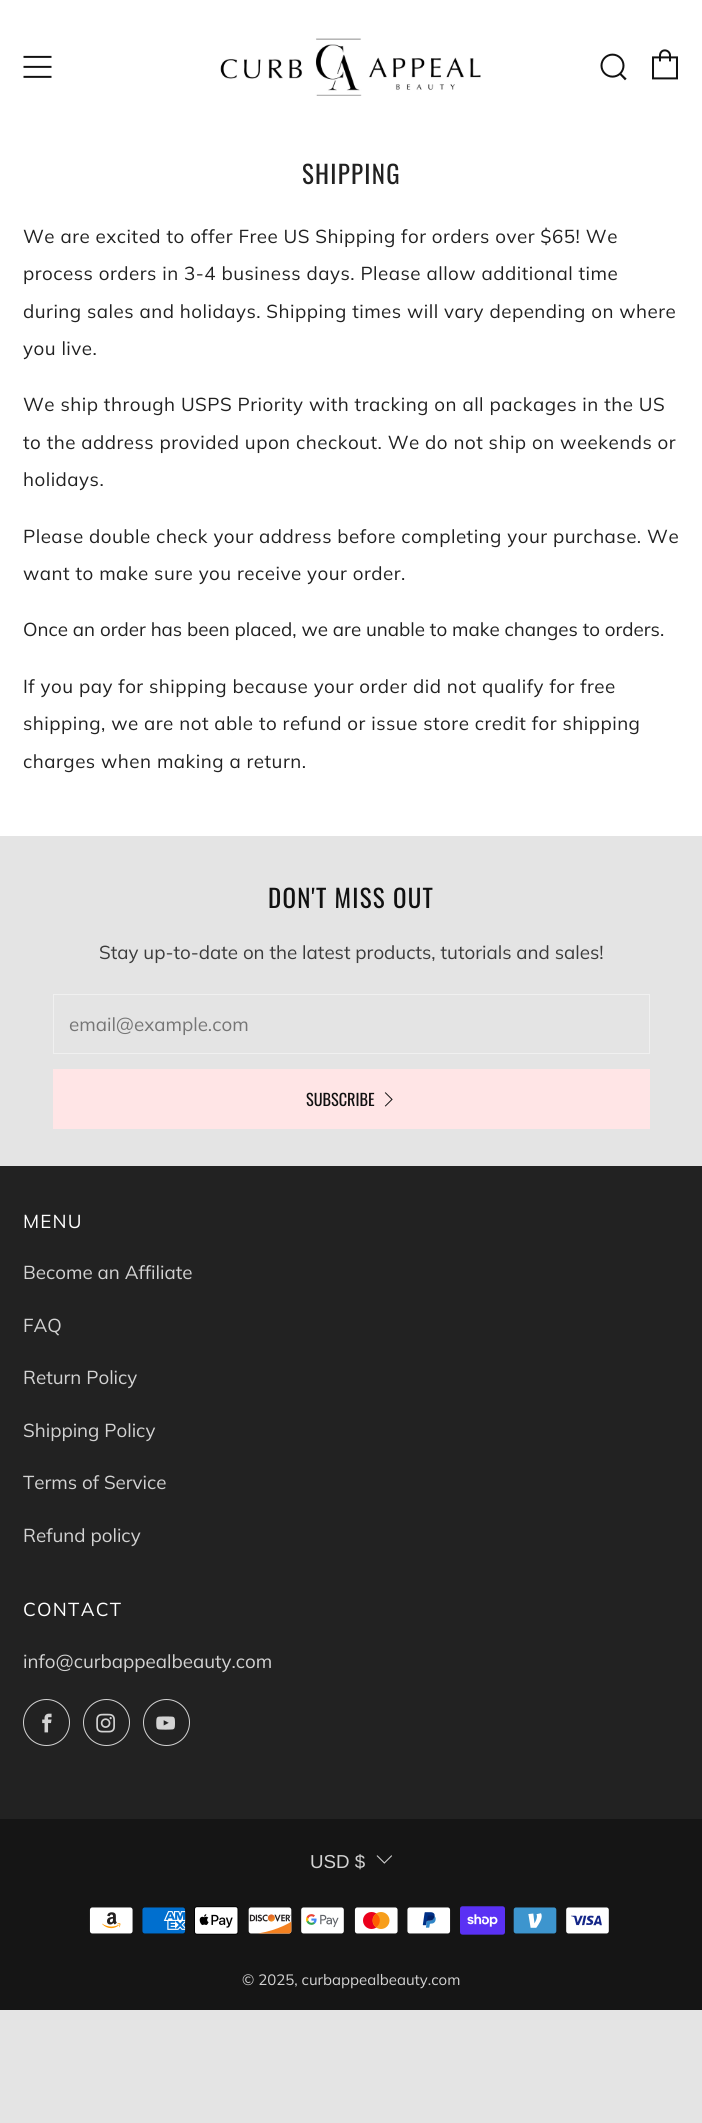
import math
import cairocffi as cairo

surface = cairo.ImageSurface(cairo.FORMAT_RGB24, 702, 2123)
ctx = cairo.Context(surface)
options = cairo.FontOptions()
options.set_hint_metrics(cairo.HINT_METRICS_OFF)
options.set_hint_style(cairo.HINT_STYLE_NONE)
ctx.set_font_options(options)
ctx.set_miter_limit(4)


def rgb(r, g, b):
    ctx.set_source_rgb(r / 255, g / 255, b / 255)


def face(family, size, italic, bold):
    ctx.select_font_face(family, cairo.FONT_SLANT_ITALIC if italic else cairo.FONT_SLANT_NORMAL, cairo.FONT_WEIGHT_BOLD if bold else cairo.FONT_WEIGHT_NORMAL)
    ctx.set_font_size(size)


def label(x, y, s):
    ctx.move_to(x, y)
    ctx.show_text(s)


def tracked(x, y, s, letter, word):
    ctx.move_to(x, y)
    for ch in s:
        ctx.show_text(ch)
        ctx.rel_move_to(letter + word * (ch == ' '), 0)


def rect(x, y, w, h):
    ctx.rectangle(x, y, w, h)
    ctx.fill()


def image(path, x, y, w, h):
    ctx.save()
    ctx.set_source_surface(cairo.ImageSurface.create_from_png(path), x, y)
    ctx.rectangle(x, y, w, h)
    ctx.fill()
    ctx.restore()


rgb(228, 228, 228)
ctx.paint()
rgb(255, 255, 255)
rect(0, 0, 702, 836)
image('image0.png', 23, 55, 29, 23)
image('image1.png', 220, 38, 261, 58)
image('image2.png', 600, 53, 27, 28)
image('image3.png', 652, 49, 26, 31)
face('Oswald', 25, 0, 0)
rgb(33, 33, 33)
tracked(302, 184, 'SHIPPING', 1.25, 0)
face('Muli', 18.75, 0, 0)
tracked(23, 243, 'We are excited to offer Free US Shipping for orders over $65! We', 0.5, 0)
tracked(23, 280, 'process orders in 3-4 business days. Please allow additional time', 0.5, 0)
tracked(23, 318, 'during sales and holidays. Shipping times will vary depending on where', 0.5, 0)
tracked(23, 355, 'you live.', 0.5, 0)
tracked(23, 411, 'We ship through USPS Priority with tracking on all packages in the US', 0.5, 0)
tracked(23, 449, 'to the address provided upon checkout. We do not ship on weekends or', 0.5, 0)
tracked(23, 486, 'holidays.', 0.5, 0)
tracked(23, 543, 'Please double check your address before completing your purchase. We', 0.5, 0)
tracked(23, 580, 'want to make sure you receive your order.', 0.5, 0)
label(23, 636, 'Once an order has been placed, we are unable to make changes to orders.')
tracked(23, 693, 'If you pay for shipping because your order did not qualify for free', 0.5, 0)
tracked(23, 730, 'shipping, we are not able to refund or issue store credit for shipping', 0.5, 0)
tracked(23, 768, 'charges when making a return.', 0.5, 0)
face('Oswald', 25, 0, 0)
rgb(17, 17, 17)
tracked(268, 908, 'DON\'T MISS OUT', 1.25, 0)
face('Muli', 18.75, 0, 0)
rgb(59, 59, 59)
label(99, 959, 'Stay up-to-date on the latest products, tutorials and sales!')
ctx.rectangle(53.5, 994.5, 596, 59)
rgb(240, 240, 240)
ctx.set_line_width(1)
ctx.stroke()
rgb(117, 117, 117)
label(69, 1031, 'email@example.com')
rgb(255, 229, 230)
rect(53, 1069, 597, 60)
face('Oswald', 16.25, 0, 0)
rgb(17, 17, 17)
label(306, 1106, 'SUBSCRIBE')
image('image4.png', 384, 1092, 9, 15)
rgb(34, 34, 34)
rect(0, 1166, 702, 653)
face('Muli', 18.75, 0, 0)
rgb(255, 255, 255)
tracked(23, 1228, 'MENU', 1.25, 0)
rgb(211, 211, 211)
label(23, 1279, 'Become an Affiliate')
label(23, 1332, 'FAQ')
label(23, 1384, 'Return Policy')
label(23, 1437, 'Shipping Policy')
label(23, 1489, 'Terms of Service')
label(23, 1542, 'Refund policy')
rgb(255, 255, 255)
tracked(23, 1616, 'CONTACT', 1.25, 0)
rgb(211, 211, 211)
label(23, 1668, 'info@curbappealbeauty.com')
ctx.new_path()
ctx.arc(46.5, 1722.5, 23, 0, 2 * math.pi)
ctx.stroke()
image('image5.png', 42, 1713, 10, 20)
ctx.arc(106.5, 1722.5, 23, 0, 2 * math.pi)
ctx.stroke()
image('image6.png', 96, 1713, 19, 20)
ctx.arc(166.5, 1722.5, 23, 0, 2 * math.pi)
ctx.stroke()
image('image7.png', 156, 1716, 19, 14)
rgb(21, 21, 21)
rect(0, 1819, 702, 191)
face('Liberation Sans', 18.75, 0, 0)
rgb(211, 211, 211)
label(310, 1868, 'USD $')
image('image8.png', 376, 1855, 16, 9)
image('image9.png', 89, 1907, 44, 27)
image('image10.png', 142, 1907, 44, 27)
image('image11.png', 194, 1906, 45, 29)
image('image12.png', 248, 1907, 44, 27)
image('image13.png', 301, 1907, 43, 27)
image('image14.png', 354, 1907, 44, 27)
image('image15.png', 407, 1907, 44, 27)
image('image16.png', 460, 1906, 45, 29)
image('image17.png', 513, 1907, 44, 27)
image('image18.png', 566, 1907, 43, 27)
face('Muli', 15, 0, 0)
label(242, 1985, '© 2025, curbappealbeauty.com')
surface.write_to_png('render.png')
